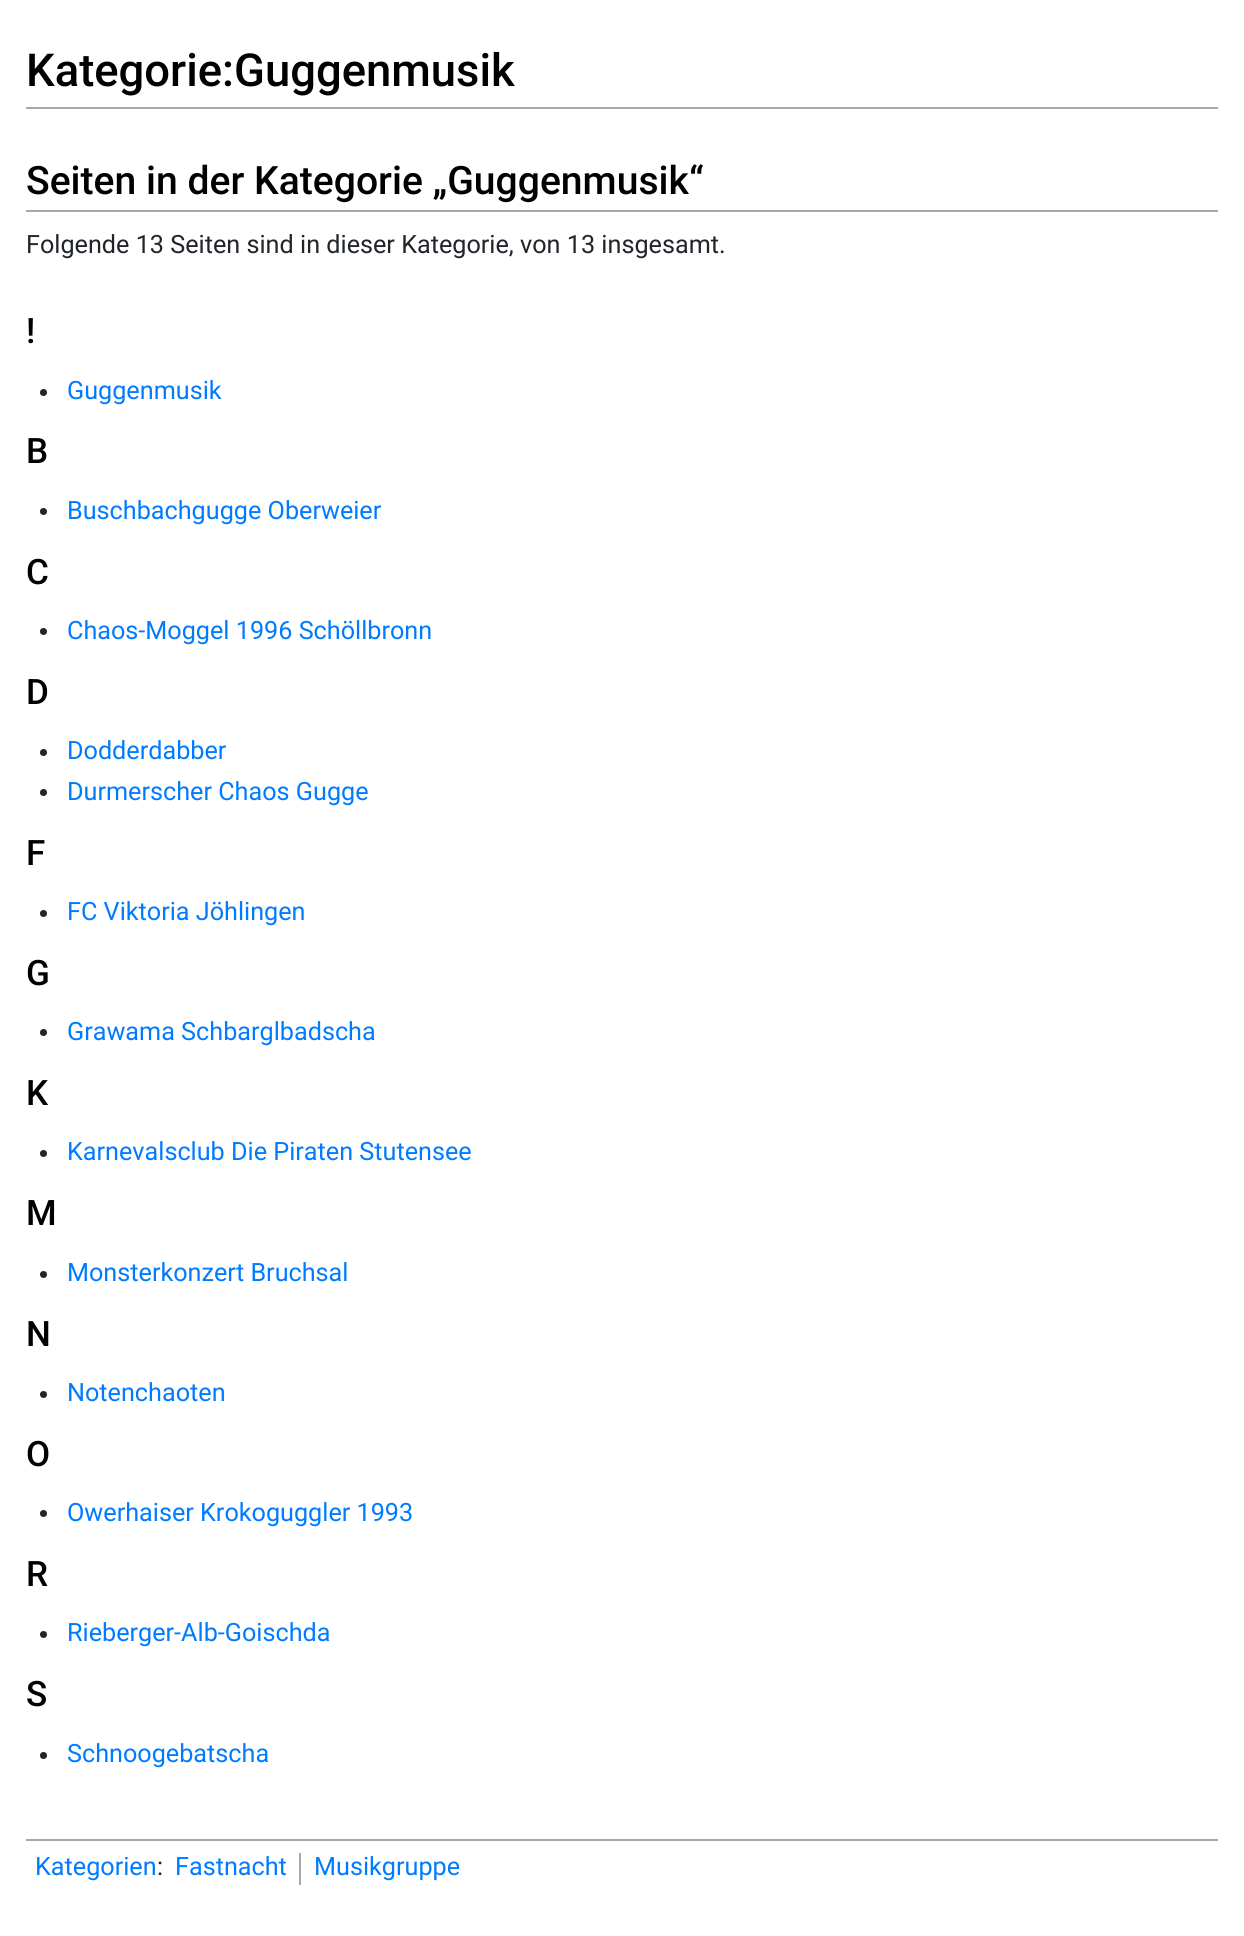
import math
import cairocffi as cairo

surface = cairo.ImageSurface(cairo.FORMAT_RGB24, 1244, 1936)
ctx = cairo.Context(surface)
options = cairo.FontOptions()
options.set_hint_metrics(cairo.HINT_METRICS_OFF)
options.set_hint_style(cairo.HINT_STYLE_NONE)
ctx.set_font_options(options)
ctx.set_miter_limit(4)


def rgb(r, g, b):
    ctx.set_source_rgb(r / 255, g / 255, b / 255)


def face(family, size, italic, bold):
    ctx.select_font_face(family, cairo.FONT_SLANT_ITALIC if italic else cairo.FONT_SLANT_NORMAL, cairo.FONT_WEIGHT_BOLD if bold else cairo.FONT_WEIGHT_NORMAL)
    ctx.set_font_size(size)


def label(x, y, s):
    ctx.move_to(x, y)
    ctx.show_text(s)


def rect(x, y, w, h):
    ctx.rectangle(x, y, w, h)
    ctx.fill()


rgb(255, 255, 255)
ctx.paint()
rgb(162, 169, 177)
rect(26, 107, 1192, 2)
face('Roboto Medium', 45.4, 0, 0)
rgb(0, 0, 0)
label(26, 86, 'Kategorie:Guggenmusik')
rgb(162, 169, 177)
rect(26, 210, 1192, 2)
face('Roboto Medium', 39.1, 0, 0)
rgb(0, 0, 0)
label(26, 194, 'Seiten in der Kategorie „Guggenmusik“')
face('Roboto', 25.2, 0, 0)
rgb(33, 37, 41)
label(26, 253, 'Folgende 13 Seiten sind in dieser Kategorie, von 13 insgesamt.')
face('Roboto Medium', 35, 0, 0)
rgb(0, 0, 0)
label(26, 343, '!')
rgb(33, 37, 41)
ctx.new_path()
ctx.arc(43.5, 392.5, 3.5, 0, 2 * math.pi)
ctx.fill()
face('Roboto', 25.2, 0, 0)
rgb(0, 123, 255)
label(67, 399, 'Guggenmusik')
face('Roboto Medium', 35, 0, 0)
rgb(0, 0, 0)
label(26, 463, 'B')
rgb(33, 37, 41)
ctx.new_path()
ctx.arc(43.5, 511.5, 3.5, 0, 2 * math.pi)
ctx.fill()
face('Roboto', 25.2, 0, 0)
rgb(0, 123, 255)
label(67, 519, 'Buschbachgugge Oberweier')
face('Roboto Medium', 35, 0, 0)
rgb(0, 0, 0)
label(26, 584, 'C')
rgb(33, 37, 41)
ctx.new_path()
ctx.arc(43.5, 631.5, 3.5, 0, 2 * math.pi)
ctx.fill()
face('Roboto', 25.2, 0, 0)
rgb(0, 123, 255)
label(67, 639, 'Chaos-Moggel 1996 Schöllbronn')
face('Roboto Medium', 35, 0, 0)
rgb(0, 0, 0)
label(26, 704, 'D')
rgb(33, 37, 41)
ctx.new_path()
ctx.arc(43.5, 752.5, 3.5, 0, 2 * math.pi)
ctx.fill()
face('Roboto', 25.2, 0, 0)
rgb(0, 123, 255)
label(67, 759, 'Dodderdabber')
rgb(33, 37, 41)
ctx.new_path()
ctx.arc(43.5, 792.5, 3.5, 0, 2 * math.pi)
ctx.fill()
rgb(0, 123, 255)
label(67, 800, 'Durmerscher Chaos Gugge')
face('Roboto Medium', 35, 0, 0)
rgb(0, 0, 0)
label(26, 865, 'F')
rgb(33, 37, 41)
ctx.new_path()
ctx.arc(43.5, 913.5, 3.5, 0, 2 * math.pi)
ctx.fill()
face('Roboto', 25.2, 0, 0)
rgb(0, 123, 255)
label(67, 920, 'FC Viktoria Jöhlingen')
face('Roboto Medium', 35, 0, 0)
rgb(0, 0, 0)
label(26, 985, 'G')
rgb(33, 37, 41)
ctx.new_path()
ctx.arc(43.5, 1032.5, 3.5, 0, 2 * math.pi)
ctx.fill()
face('Roboto', 25.2, 0, 0)
rgb(0, 123, 255)
label(67, 1040, 'Grawama Schbarglbadscha')
face('Roboto Medium', 35, 0, 0)
rgb(0, 0, 0)
label(26, 1105, 'K')
rgb(33, 37, 41)
ctx.new_path()
ctx.arc(43.5, 1153.5, 3.5, 0, 2 * math.pi)
ctx.fill()
face('Roboto', 25.2, 0, 0)
rgb(0, 123, 255)
label(67, 1160, 'Karnevalsclub Die Piraten Stutensee')
face('Roboto Medium', 35, 0, 0)
rgb(0, 0, 0)
label(26, 1225, 'M')
rgb(33, 37, 41)
ctx.new_path()
ctx.arc(43.5, 1274.5, 3.5, 0, 2 * math.pi)
ctx.fill()
face('Roboto', 25.2, 0, 0)
rgb(0, 123, 255)
label(67, 1281, 'Monsterkonzert Bruchsal')
face('Roboto Medium', 35, 0, 0)
rgb(0, 0, 0)
label(26, 1346, 'N')
rgb(33, 37, 41)
ctx.new_path()
ctx.arc(43.5, 1394.5, 3.5, 0, 2 * math.pi)
ctx.fill()
face('Roboto', 25.2, 0, 0)
rgb(0, 123, 255)
label(67, 1401, 'Notenchaoten')
face('Roboto Medium', 35, 0, 0)
rgb(0, 0, 0)
label(26, 1466, 'O')
rgb(33, 37, 41)
ctx.new_path()
ctx.arc(43.5, 1513.5, 3.5, 0, 2 * math.pi)
ctx.fill()
face('Roboto', 25.2, 0, 0)
rgb(0, 123, 255)
label(67, 1521, 'Owerhaiser Krokoguggler 1993')
face('Roboto Medium', 35, 0, 0)
rgb(0, 0, 0)
label(26, 1586, 'R')
rgb(33, 37, 41)
ctx.new_path()
ctx.arc(43.5, 1634.5, 3.5, 0, 2 * math.pi)
ctx.fill()
face('Roboto', 25.2, 0, 0)
rgb(0, 123, 255)
label(67, 1641, 'Rieberger-Alb-Goischda')
face('Roboto Medium', 35, 0, 0)
rgb(0, 0, 0)
label(26, 1706, 'S')
rgb(33, 37, 41)
ctx.new_path()
ctx.arc(43.5, 1755.5, 3.5, 0, 2 * math.pi)
ctx.fill()
face('Roboto', 25.2, 0, 0)
rgb(0, 123, 255)
label(67, 1762, 'Schnoogebatscha')
rgb(162, 169, 177)
rect(26, 1839, 1192, 2)
rgb(0, 123, 255)
label(35, 1875, 'Kategorien')
rgb(33, 37, 41)
label(157, 1875, ':')
rgb(0, 123, 255)
label(175, 1875, 'Fastnacht')
rgb(162, 169, 177)
rect(299, 1853, 2, 32)
rgb(0, 123, 255)
label(314, 1875, 'Musikgruppe')
surface.write_to_png('render.png')
